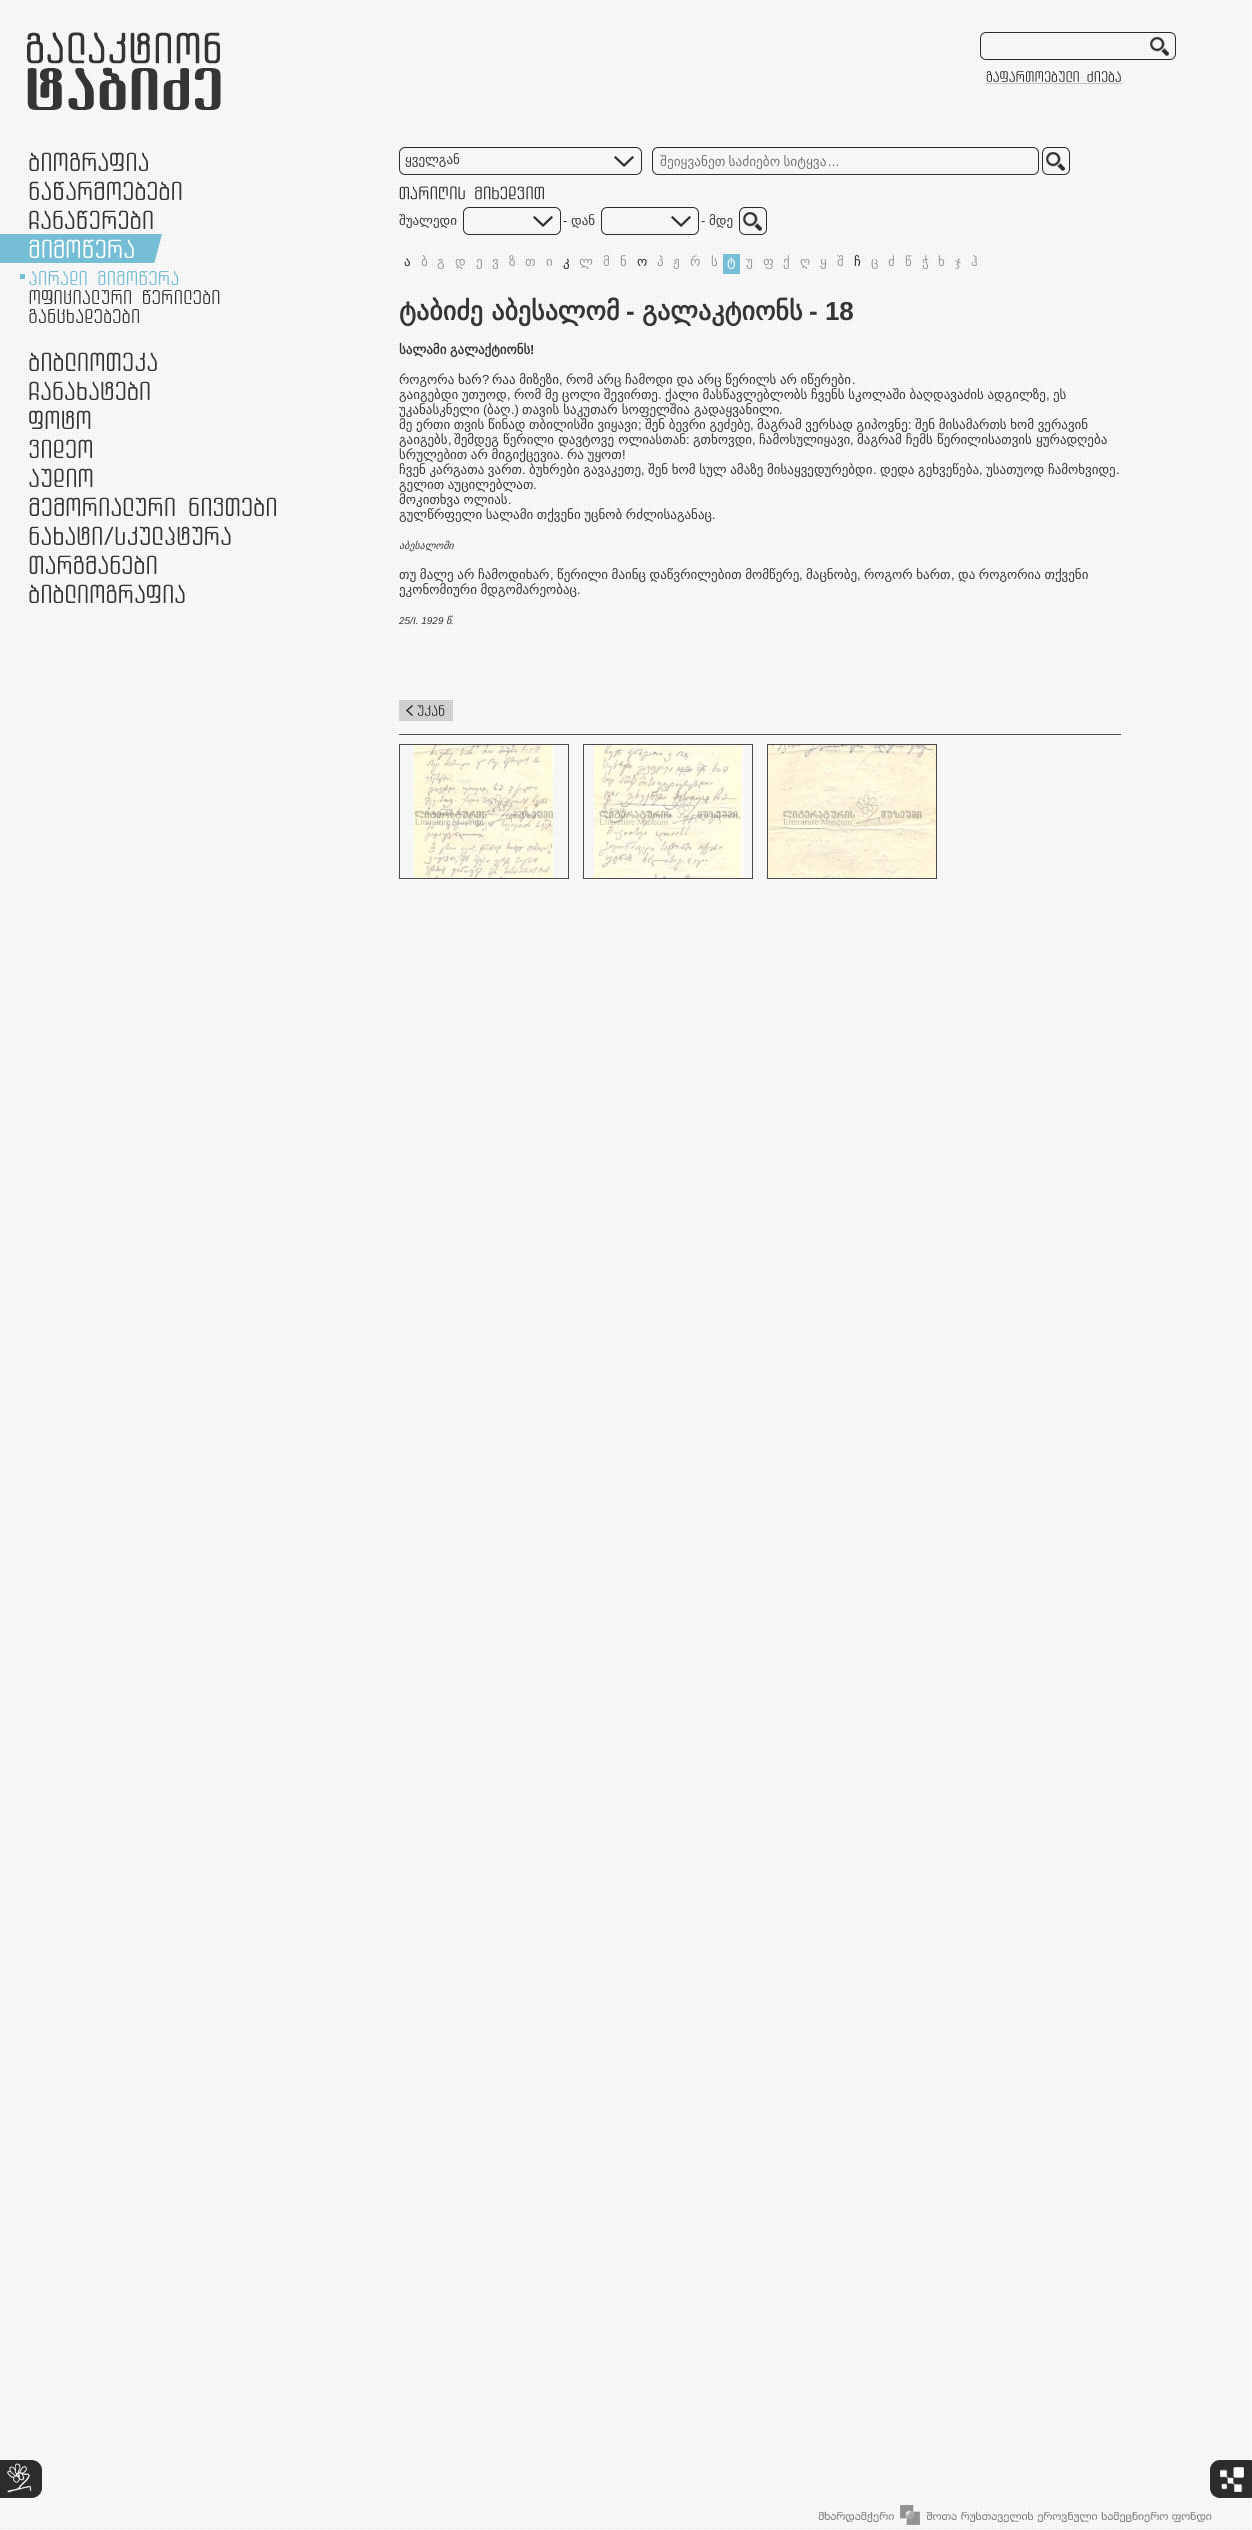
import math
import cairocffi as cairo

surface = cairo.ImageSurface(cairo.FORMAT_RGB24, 1252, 2530)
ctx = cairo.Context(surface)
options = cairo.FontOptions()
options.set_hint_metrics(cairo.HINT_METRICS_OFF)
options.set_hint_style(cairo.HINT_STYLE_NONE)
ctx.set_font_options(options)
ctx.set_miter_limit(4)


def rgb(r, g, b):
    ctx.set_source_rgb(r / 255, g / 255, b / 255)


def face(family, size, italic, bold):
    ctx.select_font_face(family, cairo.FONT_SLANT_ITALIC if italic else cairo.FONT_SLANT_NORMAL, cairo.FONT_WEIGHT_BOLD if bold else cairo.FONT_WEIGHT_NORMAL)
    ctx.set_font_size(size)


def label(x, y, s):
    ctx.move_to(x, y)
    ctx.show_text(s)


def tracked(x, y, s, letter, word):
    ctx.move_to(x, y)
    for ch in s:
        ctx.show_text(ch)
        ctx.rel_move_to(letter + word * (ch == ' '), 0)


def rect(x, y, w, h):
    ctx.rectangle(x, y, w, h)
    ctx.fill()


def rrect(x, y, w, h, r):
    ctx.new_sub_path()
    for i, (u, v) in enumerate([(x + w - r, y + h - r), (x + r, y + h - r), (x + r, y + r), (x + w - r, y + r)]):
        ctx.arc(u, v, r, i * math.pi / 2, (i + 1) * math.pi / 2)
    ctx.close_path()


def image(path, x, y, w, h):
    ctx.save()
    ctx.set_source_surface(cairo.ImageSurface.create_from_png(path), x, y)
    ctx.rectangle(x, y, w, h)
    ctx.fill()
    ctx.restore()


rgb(255, 255, 255)
ctx.paint()
image('image0.png', 0, 147, 1252, 2383)
image('image1.png', 0, 0, 1252, 147)
image('image2.png', 27, 32, 194, 78)
rrect(980.5, 32.5, 195, 27, 5.5)
rgb(44, 44, 44)
ctx.set_line_width(1)
ctx.stroke()
image('image3.png', 1150, 37, 19, 19)
image('image4.png', 986, 71, 137, 13)
image('image5.png', 29, 152, 119, 19)
image('image6.png', 29, 181, 153, 19)
image('image7.png', 29, 210, 124, 19)
image('image8.png', 0, 234, 162, 29)
image('image9.png', 29, 239, 105, 19)
rgb(117, 190, 214)
rect(20, 274, 5, 5)
image('image10.png', 29, 271, 150, 14)
image('image11.png', 29, 290, 191, 14)
image('image12.png', 29, 309, 110, 14)
image('image13.png', 29, 352, 128, 19)
image('image14.png', 29, 381, 121, 19)
image('image15.png', 29, 410, 62, 19)
image('image16.png', 29, 439, 63, 19)
image('image17.png', 29, 468, 64, 19)
image('image18.png', 29, 497, 247, 19)
image('image19.png', 29, 526, 202, 19)
image('image20.png', 29, 555, 128, 19)
image('image21.png', 29, 584, 156, 19)
rrect(399.5, 147.5, 242, 27, 5.5)
rgb(44, 44, 44)
ctx.stroke()
face('DejaVu Sans', 13, 0, 0)
rgb(53, 53, 53)
label(405, 164, 'ყველგან')
image('image22.png', 614, 156, 20, 11)
rrect(652.5, 147.5, 386, 27, 5.5)
rgb(44, 44, 44)
ctx.stroke()
ctx.save()
ctx.rectangle(660, 154, 375, 15)
ctx.clip()
face('DejaVu Sans', 13.3, 0, 0)
rgb(117, 117, 117)
tracked(660, 166, 'შეიყვანეთ საძიებო სიტყვა', 0, -1)
ctx.restore()
face('Liberation Sans', 13.3, 0, 0)
rgb(117, 117, 117)
label(828, 166, '...')
image('image23.png', 1046, 152, 19, 19)
rrect(1042.5, 147.5, 27, 27, 5.5)
rgb(44, 44, 44)
ctx.stroke()
image('image24.png', 399, 186, 145, 14)
face('DejaVu Sans', 13, 0, 0)
rgb(53, 53, 53)
label(399, 225, 'შუალედი')
rrect(463.5, 207.5, 97, 27, 5.5)
rgb(44, 44, 44)
ctx.stroke()
image('image25.png', 533, 216, 20, 11)
face('Liberation Sans', 13, 0, 0)
rgb(53, 53, 53)
label(563, 225, '-')
face('DejaVu Sans', 13, 0, 0)
label(571, 225, 'დან')
rrect(601.5, 207.5, 97, 27, 5.5)
rgb(44, 44, 44)
ctx.stroke()
image('image25.png', 671, 216, 20, 11)
face('Liberation Sans', 13, 0, 0)
rgb(53, 53, 53)
label(701, 225, '-')
face('DejaVu Sans', 13, 0, 0)
label(709, 225, 'მდე')
image('image26.png', 743, 212, 19, 19)
rrect(739.5, 207.5, 27, 27, 5.5)
rgb(44, 44, 44)
ctx.stroke()
label(404, 266, 'ა')
rgb(153, 153, 153)
label(421, 266, 'ბ')
label(437, 266, 'გ')
label(455, 266, 'დ')
label(476, 266, 'ე')
label(492, 266, 'ვ')
label(509, 266, 'ზ')
label(525, 266, 'თ')
label(546, 266, 'ი')
rgb(44, 44, 44)
label(563, 266, 'კ')
rgb(153, 153, 153)
label(579, 266, 'ლ')
label(603, 266, 'მ')
label(620, 266, 'ნ')
rgb(44, 44, 44)
label(637, 266, 'ო')
rgb(153, 153, 153)
label(657, 266, 'პ')
label(673, 266, 'ჟ')
label(690, 266, 'რ')
label(711, 266, 'ს')
rgb(117, 190, 214)
rect(723, 254, 17, 20)
rgb(255, 255, 255)
label(727, 266, 'ტ')
rgb(153, 153, 153)
label(746, 266, 'უ')
label(763, 266, 'ფ')
label(783, 266, 'ქ')
label(800, 266, 'ღ')
label(820, 266, 'ყ')
label(837, 266, 'შ')
rgb(44, 44, 44)
label(854, 266, 'ჩ')
rgb(153, 153, 153)
label(871, 266, 'ც')
label(888, 266, 'ძ')
label(905, 266, 'წ')
label(922, 266, 'ჭ')
label(938, 266, 'ხ')
label(955, 266, 'ჯ')
label(971, 266, 'ჰ')
face('DejaVu Sans', 26, 0, 1)
rgb(53, 53, 53)
label(399, 320, 'ტაბიძე აბესალომ')
face('Liberation Sans', 26, 0, 1)
label(626, 320, '-')
face('DejaVu Sans', 26, 0, 1)
label(642, 320, 'გალაკტიონს')
face('Liberation Sans', 26, 0, 1)
label(809, 320, '- 18')
face('DejaVu Sans', 13, 0, 1)
tracked(399, 354, 'სალამი გალაქტიონს', 0, -0.5)
face('Liberation Sans', 13, 0, 1)
label(530, 354, '!')
face('DejaVu Sans', 13, 0, 0)
tracked(399, 384, 'როგორა ხარ', 0, -0.5)
face('Liberation Sans', 13, 0, 0)
label(482, 384, '?')
face('DejaVu Sans', 13, 0, 0)
tracked(492, 384, 'რაა მიზეზი', 0, -0.5)
face('Liberation Sans', 13, 0, 0)
label(559, 384, ',')
face('DejaVu Sans', 13, 0, 0)
tracked(566, 384, 'რომ არც ჩამოდი და არც წერილს არ იწერები', 0, -0.5)
face('Liberation Sans', 13, 0, 0)
label(852, 384, '.')
face('DejaVu Sans', 13, 0, 0)
tracked(399, 399, 'გაიგებდი უთუოდ', 0, -0.5)
face('Liberation Sans', 13, 0, 0)
label(507, 399, ',')
face('DejaVu Sans', 13, 0, 0)
tracked(514, 399, 'რომ მე ცოლი შევირთე', 0, -0.5)
face('Liberation Sans', 13, 0, 0)
label(658, 399, '.')
face('DejaVu Sans', 13, 0, 0)
tracked(665, 399, 'ქალი მასწავლებლობს ჩვენს სკოლაში ბაღდავაძის ადგილზე', 0, -0.5)
face('Liberation Sans', 13, 0, 0)
label(1046, 399, ',')
face('DejaVu Sans', 13, 0, 0)
label(1053, 399, 'ეს')
label(399, 414, 'უკანასკნელი')
face('Liberation Sans', 13, 0, 0)
label(483, 414, '(')
face('DejaVu Sans', 13, 0, 0)
label(487, 414, 'ბაღ')
face('Liberation Sans', 13, 0, 0)
label(511, 414, '.)')
face('DejaVu Sans', 13, 0, 0)
label(522, 414, 'თავის საკუთარ სოფელშია გადაყვანილი')
face('Liberation Sans', 13, 0, 0)
label(779, 414, '.')
face('DejaVu Sans', 13, 0, 0)
tracked(399, 429, 'მე ერთი თვის წინად თბილისში ვიყავი', 0, -0.5)
face('Liberation Sans', 13, 0, 0)
label(638, 429, ';')
face('DejaVu Sans', 13, 0, 0)
tracked(645, 429, 'შენ ბევრი გეძებე', 0, -0.5)
face('Liberation Sans', 13, 0, 0)
label(750, 429, ',')
face('DejaVu Sans', 13, 0, 0)
tracked(757, 429, 'მაგრამ ვერსად გიპოვნე', 0, -0.5)
face('Liberation Sans', 13, 0, 0)
label(908, 429, ':')
face('DejaVu Sans', 13, 0, 0)
tracked(915, 429, 'შენ მისამართს ხომ ვერავინ', 0, -0.5)
label(399, 444, 'გაიგებს')
face('Liberation Sans', 13, 0, 0)
label(448, 444, ',')
face('DejaVu Sans', 13, 0, 0)
label(454, 444, 'შემდეგ წერილი დავტოვე ოლიასთან')
face('Liberation Sans', 13, 0, 0)
label(686, 444, ':')
face('DejaVu Sans', 13, 0, 0)
label(693, 444, 'გთხოვდი')
face('Liberation Sans', 13, 0, 0)
label(752, 444, ',')
face('DejaVu Sans', 13, 0, 0)
label(759, 444, 'ჩამოსულიყავი')
face('Liberation Sans', 13, 0, 0)
label(850, 444, ',')
face('DejaVu Sans', 13, 0, 0)
label(857, 444, 'მაგრამ ჩემს წერილისათვის ყურადღება')
tracked(399, 459, 'სრულებით არ მიგიქცევია', 0, -0.5)
face('Liberation Sans', 13, 0, 0)
label(560, 459, '.')
face('DejaVu Sans', 13, 0, 0)
tracked(567, 459, 'რა უყოთ', 0, -0.5)
face('Liberation Sans', 13, 0, 0)
label(622, 459, '!')
face('DejaVu Sans', 13, 0, 0)
tracked(399, 474, 'ჩვენ კარგათა ვართ', 0, -0.5)
face('Liberation Sans', 13, 0, 0)
label(522, 474, '.')
face('DejaVu Sans', 13, 0, 0)
tracked(529, 474, 'ბუხრები გავაკეთე', 0, -0.5)
face('Liberation Sans', 13, 0, 0)
label(641, 474, ',')
face('DejaVu Sans', 13, 0, 0)
tracked(648, 474, 'შენ ხომ სულ ამაზე მისაყვედურებდი', 0, -0.5)
face('Liberation Sans', 13, 0, 0)
label(873, 474, '.')
face('DejaVu Sans', 13, 0, 0)
tracked(880, 474, 'დედა გეხვეწება', 0, -0.5)
face('Liberation Sans', 13, 0, 0)
label(979, 474, ',')
face('DejaVu Sans', 13, 0, 0)
tracked(986, 474, 'უსათუოდ ჩამოხვიდე', 0, -0.5)
face('Liberation Sans', 13, 0, 0)
label(1116, 474, '.')
face('DejaVu Sans', 13, 0, 0)
tracked(399, 489, 'გელით აუცილებლათ', 0, -0.5)
face('Liberation Sans', 13, 0, 0)
label(533, 489, '.')
face('DejaVu Sans', 13, 0, 0)
tracked(399, 504, 'მოკითხვა ოლიას', 0, -0.5)
face('Liberation Sans', 13, 0, 0)
label(508, 504, '.')
face('DejaVu Sans', 13, 0, 0)
tracked(399, 519, 'გულწრფელი სალამი თქვენი უცნობ რძლისაგანაც', 0, -0.5)
face('Liberation Sans', 13, 0, 0)
label(712, 519, '.')
face('DejaVu Sans', 10, 1, 0)
label(399, 549, 'აბესალომი')
face('DejaVu Sans', 13, 0, 0)
tracked(399, 579, 'თუ მალე არ ჩამოდიხარ', 0, -0.5)
face('Liberation Sans', 13, 0, 0)
label(550, 579, ',')
face('DejaVu Sans', 13, 0, 0)
tracked(557, 579, 'წერილი მაინც დაწვრილებით მომწერე', 0, -0.5)
face('Liberation Sans', 13, 0, 0)
label(799, 579, ',')
face('DejaVu Sans', 13, 0, 0)
label(806, 579, 'მაცნობე')
face('Liberation Sans', 13, 0, 0)
label(857, 579, ',')
face('DejaVu Sans', 13, 0, 0)
tracked(864, 579, 'როგორ ხართ', 0, -0.5)
face('Liberation Sans', 13, 0, 0)
label(951, 579, ',')
face('DejaVu Sans', 13, 0, 0)
tracked(958, 579, 'და როგორია თქვენი', 0, -0.5)
tracked(399, 594, 'ეკონომიური მდგომარეობაც', 0, -0.5)
face('Liberation Sans', 13, 0, 0)
label(577, 594, '.')
face('Liberation Sans', 10, 1, 0)
label(399, 624, '25/I. 1929')
face('DejaVu Sans', 10, 1, 0)
label(446, 624, 'წ')
face('Liberation Sans', 10, 1, 0)
label(451, 624, '.')
image('image27.png', 399, 700, 54, 21)
rgb(73, 73, 73)
rect(399, 734, 722, 1)
image('image28.png', 414, 745, 140, 133)
ctx.rectangle(399.5, 744.5, 169, 134)
ctx.stroke()
image('image29.png', 594, 745, 149, 133)
ctx.rectangle(583.5, 744.5, 169, 134)
ctx.stroke()
image('image30.png', 768, 745, 168, 133)
ctx.rectangle(767.5, 744.5, 169, 134)
ctx.stroke()
image('image31.png', 0, 2460, 42, 38)
image('image32.png', 1210, 2460, 42, 38)
image('image33.png', 818, 2505, 394, 20)
surface.write_to_png('render.png')
